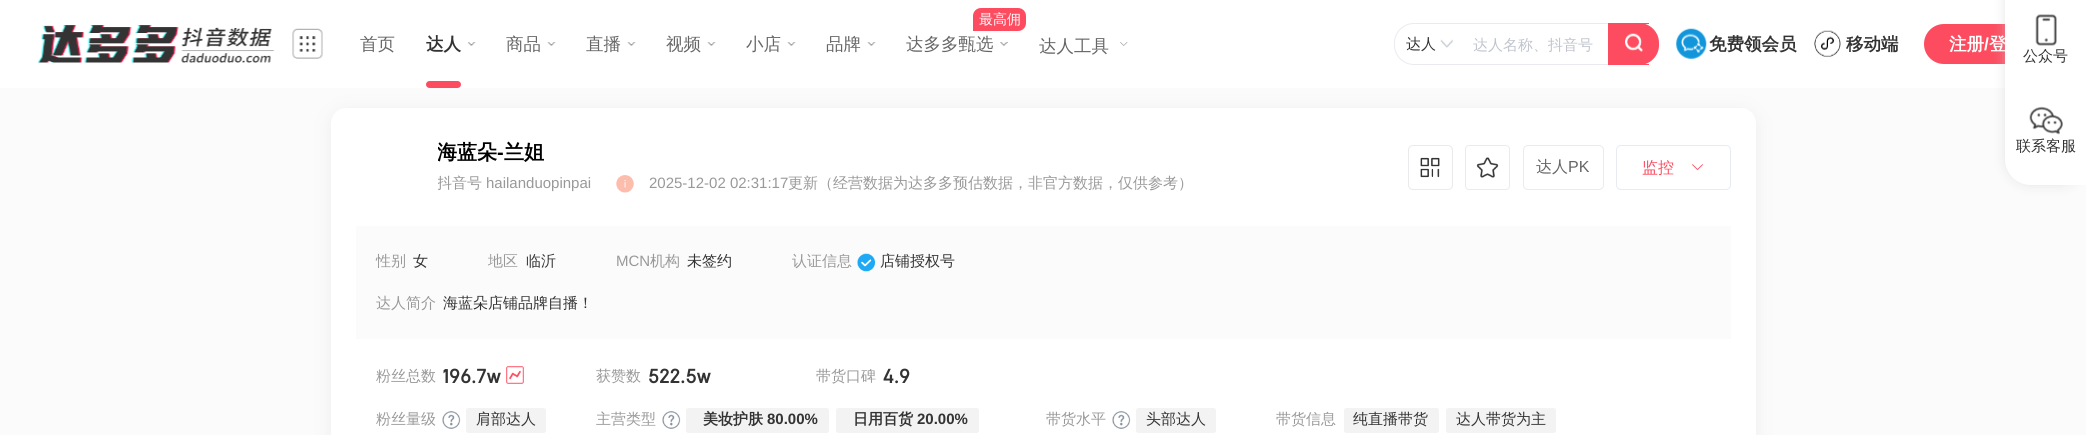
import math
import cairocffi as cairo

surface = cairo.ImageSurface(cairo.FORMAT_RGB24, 2086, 435)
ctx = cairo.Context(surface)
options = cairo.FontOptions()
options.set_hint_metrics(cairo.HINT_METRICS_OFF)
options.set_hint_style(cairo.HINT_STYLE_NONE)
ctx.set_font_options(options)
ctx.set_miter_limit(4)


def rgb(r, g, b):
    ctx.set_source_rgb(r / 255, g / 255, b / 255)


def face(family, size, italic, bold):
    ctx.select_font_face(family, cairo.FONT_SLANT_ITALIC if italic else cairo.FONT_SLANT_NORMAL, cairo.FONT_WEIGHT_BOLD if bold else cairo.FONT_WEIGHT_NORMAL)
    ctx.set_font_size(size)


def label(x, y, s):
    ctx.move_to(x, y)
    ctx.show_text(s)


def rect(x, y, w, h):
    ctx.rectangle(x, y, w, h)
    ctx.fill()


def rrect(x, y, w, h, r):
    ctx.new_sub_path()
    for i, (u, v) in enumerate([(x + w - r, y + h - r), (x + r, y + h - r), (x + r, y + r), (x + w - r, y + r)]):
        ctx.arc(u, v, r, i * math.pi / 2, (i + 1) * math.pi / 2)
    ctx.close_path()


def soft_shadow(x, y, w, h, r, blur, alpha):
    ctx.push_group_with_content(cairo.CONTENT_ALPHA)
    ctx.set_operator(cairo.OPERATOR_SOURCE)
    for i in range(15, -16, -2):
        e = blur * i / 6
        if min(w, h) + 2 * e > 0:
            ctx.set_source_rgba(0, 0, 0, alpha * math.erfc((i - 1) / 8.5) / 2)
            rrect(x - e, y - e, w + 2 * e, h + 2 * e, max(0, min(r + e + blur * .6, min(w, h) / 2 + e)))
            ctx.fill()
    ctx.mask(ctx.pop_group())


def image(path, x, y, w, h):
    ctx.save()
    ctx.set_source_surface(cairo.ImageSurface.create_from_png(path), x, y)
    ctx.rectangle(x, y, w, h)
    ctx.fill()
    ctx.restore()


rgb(251, 251, 251)
ctx.paint()
rgb(123, 123, 123)
soft_shadow(331, 111, 1425, 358, 15, 9.5, 0.1)
rgb(255, 255, 255)
rect(0, 0, 2005, 88)
image('image0.png', 37, 25, 238, 38)
image('image1.png', 292, 28, 31, 31)
face('WenQuanYi Zen Hei Medium', 17.5, 0, 0)
rgb(102, 102, 102)
label(360, 50, '首页')
face('WenQuanYi Zen Hei', 17.5, 0, 1)
rgb(51, 51, 51)
label(426, 50, '达人')
image('image2.png', 468, 42, 8, 4)
rgb(253, 76, 96)
rrect(426, 81, 35, 7, 3.5)
ctx.fill()
face('WenQuanYi Zen Hei Medium', 17.5, 0, 0)
rgb(102, 102, 102)
label(506, 50, '商品')
image('image3.png', 547, 42, 9, 4)
label(586, 50, '直播')
image('image3.png', 627, 42, 9, 4)
label(666, 50, '视频')
image('image3.png', 707, 42, 9, 4)
label(746, 50, '小店')
image('image4.png', 787, 42, 9, 4)
label(826, 50, '品牌')
image('image4.png', 867, 42, 9, 4)
rgb(253, 76, 96)
ctx.new_path()
ctx.move_to(981, 8)
ctx.line_to(1018, 8)
ctx.curve_to(1022.5, 8, 1026, 11.5, 1026, 16)
ctx.line_to(1026, 23)
ctx.curve_to(1026, 27.5, 1022.5, 31, 1018, 31)
ctx.line_to(973, 31)
ctx.line_to(973, 16)
ctx.curve_to(973, 11.5, 976.5, 8, 981, 8)
ctx.close_path()
ctx.fill()
face('WenQuanYi Zen Hei Medium', 14, 0, 0)
rgb(255, 255, 255)
label(979, 24, '最高佣')
face('WenQuanYi Zen Hei Medium', 17.5, 0, 0)
rgb(102, 102, 102)
label(906, 50, '达多多甄选')
image('image5.png', 1000, 42, 8, 4)
label(1039, 52, '达人工具')
image('image6.png', 1120, 42, 8, 4)
rrect(1394.5, 23.5, 264, 41, 19.5)
rgb(233, 235, 240)
ctx.set_line_width(1)
ctx.stroke()
face('WenQuanYi Zen Hei Medium', 15, 0, 0)
rgb(51, 51, 51)
label(1406, 49, '达人')
image('image7.png', 1440, 39, 13, 9)
rgb(192, 196, 204)
label(1473, 50, '达人名称、抖音号')
rgb(253, 76, 96)
ctx.new_path()
ctx.move_to(1608, 23)
ctx.line_to(1639, 23)
ctx.curve_to(1650, 23, 1659, 32, 1659, 43)
ctx.line_to(1659, 45)
ctx.curve_to(1659, 56, 1650, 65, 1639, 65)
ctx.line_to(1608, 65)
ctx.close_path()
ctx.fill()
rect(1639, 23, 10, 1)
rect(1639, 64, 10, 1)
image('image8.png', 1625, 33, 18, 19)
image('image9.png', 1676, 28, 31, 31)
face('WenQuanYi Zen Hei', 17.5, 0, 1)
rgb(51, 51, 51)
label(1709, 50, '免费领会员')
image('image10.png', 1814, 30, 27, 27)
label(1846, 50, '移动端')
rgb(253, 76, 96)
rrect(1924, 24, 125, 40, 20)
ctx.fill()
rgb(255, 255, 255)
label(1949, 50, '注册')
face('Liberation Sans', 17.5, 0, 1)
label(1984, 50, '/')
face('WenQuanYi Zen Hei', 17.5, 0, 1)
label(1989, 50, '登')
rgb(204, 204, 204)
soft_shadow(2005, -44, 81, 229, 26, 6, 0.5)
rgb(255, 255, 255)
ctx.new_path()
ctx.move_to(2031, -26)
ctx.line_to(2086, -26)
ctx.line_to(2086, 185)
ctx.line_to(2031, 185)
ctx.curve_to(2016.5, 185, 2005, 173.5, 2005, 159)
ctx.line_to(2005, 0)
ctx.curve_to(2005, -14.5, 2016.5, -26, 2031, -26)
ctx.close_path()
ctx.fill()
image('image11.png', 2035, 14, 22, 32)
face('WenQuanYi Zen Hei Medium', 15, 0, 0)
rgb(51, 51, 51)
label(2023, 61, '公众号')
image('image12.png', 2029, 106, 34, 29)
label(2016, 151, '联系客服')
rgb(255, 255, 255)
rrect(331, 108, 1425, 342, 15)
ctx.fill()
ctx.save()
ctx.rectangle(438, 140, 106, 26)
ctx.clip()
face('WenQuanYi Zen Hei', 20, 0, 1)
rgb(0, 0, 0)
label(437, 159, '海蓝朵')
ctx.restore()
face('Liberation Sans', 20, 0, 1)
rgb(0, 0, 0)
label(497, 159, '-')
face('WenQuanYi Zen Hei', 20, 0, 1)
label(504, 159, '兰姐')
ctx.save()
ctx.rectangle(438, 173, 153, 21)
ctx.clip()
face('WenQuanYi Zen Hei Medium', 15, 0, 0)
rgb(153, 153, 153)
label(437, 188, '抖音号')
ctx.restore()
face('Liberation Sans', 15, 0, 0)
rgb(153, 153, 153)
label(486, 188, 'hailanduopinpai')
image('image13.png', 616, 175, 18, 18)
label(649, 188, '2025-12-02 02:31:17')
face('WenQuanYi Zen Hei Medium', 15, 0, 0)
label(788, 188, '更新（经营数据为达多多预估数据，非官方数据，仅供参考）')
rrect(1408.5, 145.5, 44, 44, 4.5)
rgb(234, 234, 236)
ctx.stroke()
image('image14.png', 1420, 157, 20, 21)
rrect(1465.5, 145.5, 44, 44, 3.5)
rgb(232, 235, 241)
ctx.stroke()
image('image15.png', 1476, 157, 23, 21)
rrect(1523.5, 145.5, 80, 44, 4.5)
ctx.stroke()
face('WenQuanYi Zen Hei Medium', 16, 0, 0)
rgb(102, 102, 102)
label(1536, 172, '达人')
face('Liberation Sans', 16, 0, 0)
label(1568, 172, 'PK')
rrect(1616.5, 145.5, 114, 44, 4.5)
rgb(232, 235, 241)
ctx.stroke()
face('WenQuanYi Zen Hei Medium', 16, 0, 0)
rgb(253, 76, 96)
label(1642, 173, '监控')
image('image16.png', 1692, 164, 11, 6)
rgb(251, 251, 251)
rect(356, 226, 1375, 113)
face('WenQuanYi Zen Hei Medium', 15, 0, 0)
rgb(153, 153, 153)
label(376, 266, '性别')
rgb(51, 51, 51)
label(413, 266, '女')
rgb(153, 153, 153)
label(488, 266, '地区')
rgb(51, 51, 51)
label(526, 266, '临沂')
face('Liberation Sans', 15, 0, 0)
rgb(153, 153, 153)
label(616, 266, 'MCN')
face('WenQuanYi Zen Hei Medium', 15, 0, 0)
label(650, 266, '机构')
rgb(51, 51, 51)
label(687, 266, '未签约')
rgb(153, 153, 153)
label(792, 266, '认证信息')
image('image17.png', 857, 253, 18, 19)
rgb(51, 51, 51)
label(880, 266, '店铺授权号')
rgb(153, 153, 153)
label(376, 308, '达人简介')
rgb(51, 51, 51)
label(443, 308, '海蓝朵店铺品牌自播！')
rgb(153, 153, 153)
label(376, 381, '粉丝总数')
face('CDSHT', 20, 0, 0)
rgb(51, 51, 51)
label(443, 383, '196.7w')
image('image18.png', 506, 366, 18, 18)
face('WenQuanYi Zen Hei Medium', 15, 0, 0)
rgb(153, 153, 153)
label(596, 381, '获赞数')
face('CDSHT', 20, 0, 0)
rgb(51, 51, 51)
label(648, 383, '522.5w')
face('WenQuanYi Zen Hei Medium', 15, 0, 0)
rgb(153, 153, 153)
label(816, 381, '带货口碑')
face('CDSHT', 20, 0, 0)
rgb(51, 51, 51)
label(883, 383, '4.9')
face('WenQuanYi Zen Hei Medium', 15, 0, 0)
rgb(153, 153, 153)
label(376, 424, '粉丝量级')
image('image19.png', 442, 411, 19, 18)
rgb(243, 243, 243)
rrect(466, 408, 80, 25, 2.5)
ctx.fill()
rgb(51, 51, 51)
label(476, 424, '肩部达人')
rgb(153, 153, 153)
label(596, 424, '主营类型')
image('image19.png', 662, 411, 19, 18)
rgb(243, 243, 243)
rrect(686, 408, 143, 25, 2.5)
ctx.fill()
face('WenQuanYi Zen Hei', 15, 0, 1)
rgb(51, 51, 51)
label(703, 424, '美妆护肤')
face('Liberation Sans', 15, 0, 1)
label(767, 424, '80.00%')
rgb(243, 243, 243)
rrect(836, 408, 143, 25, 2.5)
ctx.fill()
face('WenQuanYi Zen Hei', 15, 0, 1)
rgb(51, 51, 51)
label(853, 424, '日用百货')
face('Liberation Sans', 15, 0, 1)
label(917, 424, '20.00%')
face('WenQuanYi Zen Hei Medium', 15, 0, 0)
rgb(153, 153, 153)
label(1046, 424, '带货水平')
image('image19.png', 1112, 411, 19, 18)
rgb(243, 243, 243)
rrect(1136, 408, 80, 25, 2.5)
ctx.fill()
rgb(51, 51, 51)
label(1146, 424, '头部达人')
rgb(153, 153, 153)
label(1276, 424, '带货信息')
rgb(243, 243, 243)
rrect(1344, 408, 95, 25, 2.5)
ctx.fill()
rgb(51, 51, 51)
label(1353, 424, '纯直播带货')
rgb(243, 243, 243)
rrect(1446, 408, 110, 25, 2.5)
ctx.fill()
rgb(51, 51, 51)
label(1456, 424, '达人带货为主')
surface.write_to_png('render.png')
